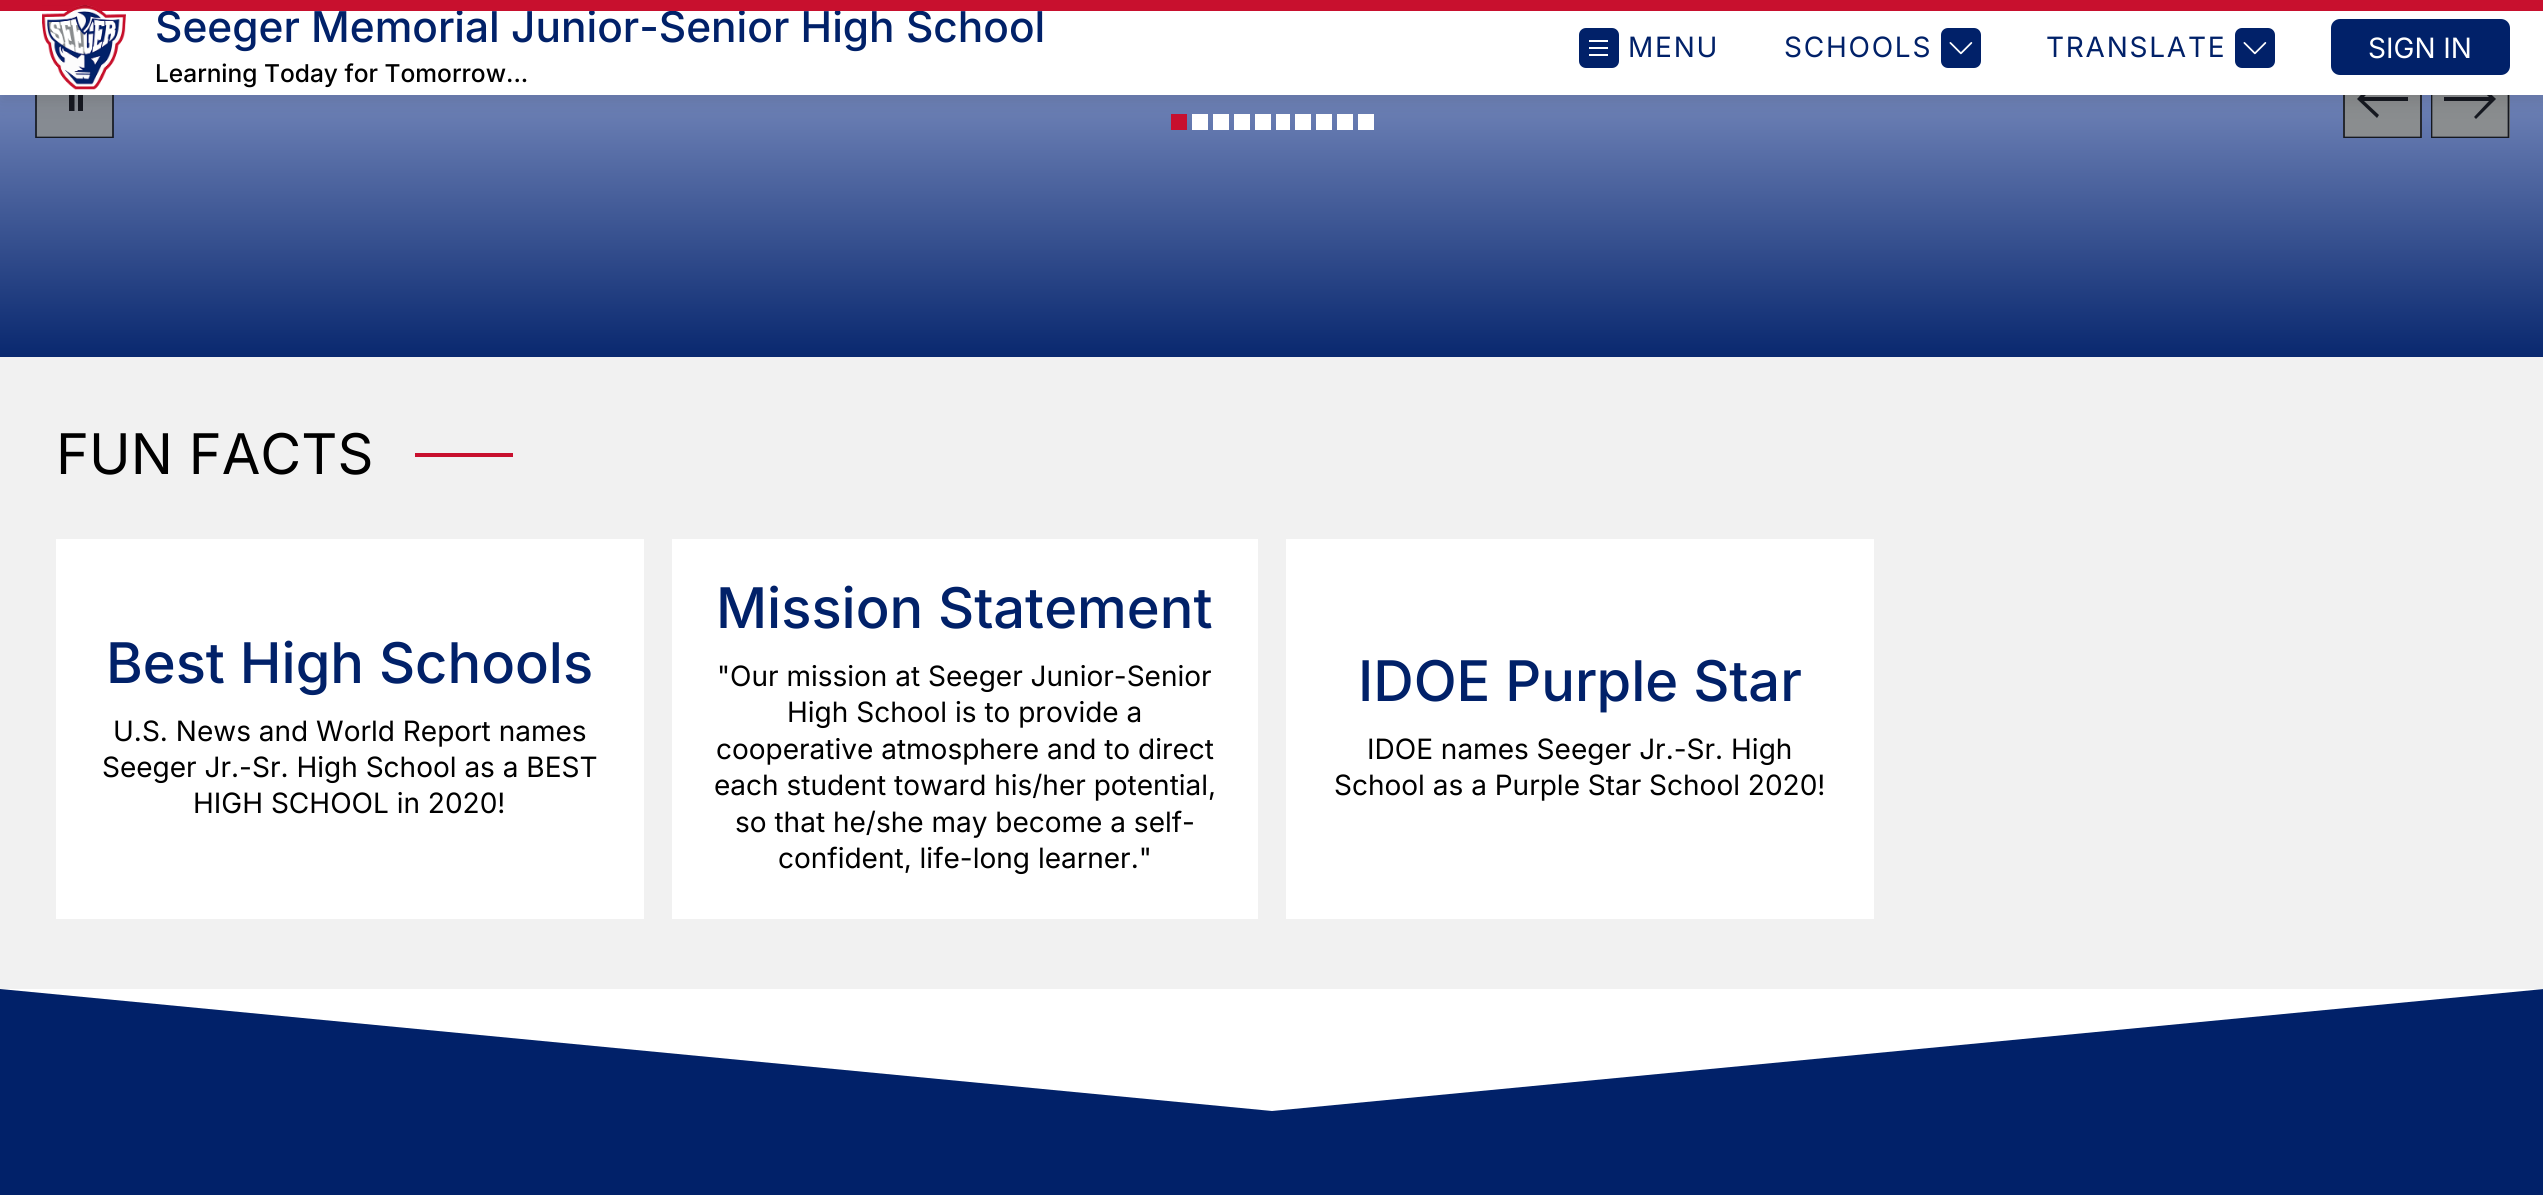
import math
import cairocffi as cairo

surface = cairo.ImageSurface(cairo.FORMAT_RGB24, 2543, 1195)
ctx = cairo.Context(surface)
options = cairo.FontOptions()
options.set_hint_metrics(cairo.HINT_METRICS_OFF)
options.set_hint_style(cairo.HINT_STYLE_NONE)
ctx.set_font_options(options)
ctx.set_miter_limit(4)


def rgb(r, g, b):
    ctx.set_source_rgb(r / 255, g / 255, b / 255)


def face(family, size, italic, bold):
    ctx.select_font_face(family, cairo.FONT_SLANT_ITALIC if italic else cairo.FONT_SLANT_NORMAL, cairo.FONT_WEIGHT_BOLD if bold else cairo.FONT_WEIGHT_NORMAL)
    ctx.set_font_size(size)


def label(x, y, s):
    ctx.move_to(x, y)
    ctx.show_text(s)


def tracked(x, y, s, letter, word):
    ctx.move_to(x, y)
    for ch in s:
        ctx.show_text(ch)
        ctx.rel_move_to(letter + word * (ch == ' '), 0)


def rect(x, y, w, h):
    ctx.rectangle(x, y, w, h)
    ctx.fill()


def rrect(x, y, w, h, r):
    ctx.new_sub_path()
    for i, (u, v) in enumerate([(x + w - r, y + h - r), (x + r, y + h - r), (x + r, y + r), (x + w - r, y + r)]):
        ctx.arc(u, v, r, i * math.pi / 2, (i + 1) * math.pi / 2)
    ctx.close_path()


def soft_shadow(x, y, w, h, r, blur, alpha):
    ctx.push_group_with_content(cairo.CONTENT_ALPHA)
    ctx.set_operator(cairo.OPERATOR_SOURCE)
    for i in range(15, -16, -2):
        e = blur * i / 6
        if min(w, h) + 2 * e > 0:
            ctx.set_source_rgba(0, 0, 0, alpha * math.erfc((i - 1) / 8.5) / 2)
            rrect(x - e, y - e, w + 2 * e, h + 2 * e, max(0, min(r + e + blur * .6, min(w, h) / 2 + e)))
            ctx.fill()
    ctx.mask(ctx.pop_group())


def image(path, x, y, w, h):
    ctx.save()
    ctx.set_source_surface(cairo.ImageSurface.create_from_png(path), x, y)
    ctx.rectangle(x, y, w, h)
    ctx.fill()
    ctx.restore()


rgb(255, 255, 255)
ctx.paint()
gradient = cairo.LinearGradient(1272, -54, 1272, 357)
gradient.add_color_stop_rgba(0, 0.663, 0.714, 0.878, 1)
gradient.add_color_stop_rgba(1, 0.035, 0.157, 0.435, 1)
ctx.set_source(gradient)
rect(0, 95, 2543, 262)
gradient = cairo.LinearGradient(1272, -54, 1272, 357)
gradient.add_color_stop_rgba(0, 0.553, 0.569, 0.592, 1)
gradient.add_color_stop_rgba(1, 0.49, 0.514, 0.549, 1)
ctx.set_source(gradient)
rect(36, 95, 77, 42)
ctx.save()
ctx.rectangle(35, 60, 79, 78)
ctx.clip()
ctx.new_path()
ctx.move_to(36, 60.5)
ctx.line_to(113, 60.5)
ctx.line_to(113, 137.5)
ctx.line_to(36, 137.5)
ctx.close_path()
rgb(21, 24, 32)
ctx.set_line_width(1.7)
ctx.stroke()
ctx.restore()
rgb(21, 24, 32)
ctx.set_fill_rule(cairo.FILL_RULE_EVEN_ODD)
ctx.new_path()
ctx.move_to(74.5, 90.5)
ctx.line_to(69, 90.5)
ctx.line_to(69, 111)
ctx.line_to(74.5, 111)
ctx.close_path()
ctx.move_to(83, 90.5)
ctx.line_to(78, 90.5)
ctx.line_to(78, 111)
ctx.line_to(83, 111)
ctx.close_path()
ctx.fill()
rgb(138, 141, 143)
rect(2343, 95, 79, 43)
ctx.save()
ctx.set_fill_rule(cairo.FILL_RULE_WINDING)
ctx.rectangle(2343, 60, 79, 78)
ctx.clip()
ctx.new_path()
ctx.move_to(2421, 137.5)
ctx.line_to(2344, 137.5)
ctx.line_to(2344, 60.5)
ctx.line_to(2421, 60.5)
ctx.close_path()
rgb(21, 24, 32)
ctx.set_line_width(1.7)
ctx.stroke()
ctx.restore()
rgb(21, 24, 32)
ctx.set_fill_rule(cairo.FILL_RULE_WINDING)
ctx.new_path()
ctx.move_to(2377, 118)
ctx.line_to(2357, 99)
ctx.line_to(2377, 78)
ctx.line_to(2379, 81)
ctx.line_to(2364, 97)
ctx.line_to(2408, 97)
ctx.line_to(2408, 101)
ctx.line_to(2364, 101)
ctx.line_to(2379, 115)
ctx.close_path()
ctx.fill()
rgb(138, 141, 143)
rect(2432, 95, 78, 43)
ctx.save()
ctx.rectangle(2431, 60, 79, 78)
ctx.clip()
ctx.new_path()
ctx.move_to(2431.5, 60.5)
ctx.line_to(2508.5, 60.5)
ctx.line_to(2508.5, 137.5)
ctx.line_to(2431.5, 137.5)
ctx.close_path()
rgb(21, 24, 32)
ctx.set_line_width(1.7)
ctx.stroke()
ctx.restore()
rgb(21, 24, 32)
ctx.new_path()
ctx.move_to(2476, 80)
ctx.line_to(2496, 99)
ctx.line_to(2476, 119)
ctx.line_to(2474, 117)
ctx.line_to(2489, 101)
ctx.line_to(2444, 101)
ctx.line_to(2444, 97)
ctx.line_to(2489, 97)
ctx.line_to(2474, 83)
ctx.close_path()
ctx.fill()
rgb(200, 16, 46)
rect(1171, 114, 16, 16)
rgb(255, 255, 255)
rect(1192, 114, 16, 16)
rect(1213, 114, 16, 16)
rect(1234, 114, 16, 16)
rect(1255, 114, 16, 16)
rect(1276, 114, 14, 16)
rect(1295, 114, 16, 16)
rect(1316, 114, 16, 16)
rect(1337, 114, 16, 16)
rect(1358, 114, 16, 16)
rgb(0, 0, 0)
soft_shadow(0, 7, 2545, 95, 0, 9, 0.1)
rgb(255, 255, 255)
rect(0, 11, 2543, 84)
face('Inter Medium', 42.4, 0, 0)
rgb(1, 33, 105)
label(155, 42, 'Seeger Memorial Junior-Senior High School')
rgb(200, 16, 46)
rect(0, 0, 2543, 11)
image('image0.png', 42, 5, 84, 85)
face('Inter Medium', 24.5, 0, 0)
rgb(0, 0, 0)
label(155, 82, 'Learning Today for Tomorrow...')
rgb(1, 33, 105)
rrect(1579, 28, 40, 40, 7)
ctx.fill()
rgb(255, 255, 255)
ctx.set_fill_rule(cairo.FILL_RULE_EVEN_ODD)
ctx.new_path()
ctx.move_to(1589, 40)
ctx.line_to(1608, 40)
ctx.line_to(1608, 42)
ctx.line_to(1589, 42)
ctx.close_path()
ctx.move_to(1589, 47)
ctx.line_to(1608, 47)
ctx.line_to(1608, 49)
ctx.line_to(1589, 49)
ctx.close_path()
ctx.move_to(1608, 54)
ctx.line_to(1589, 54)
ctx.line_to(1589, 56)
ctx.line_to(1608, 56)
ctx.close_path()
ctx.fill()
face('Inter', 28, 0, 0)
rgb(1, 33, 105)
tracked(1628, 57, 'MENU', 1.75, 0)
tracked(1784, 57, 'SCHOOLS', 1.75, 0)
image('image1.png', 1941, 28, 40, 40)
tracked(2046, 57, 'TRANSLATE', 1.75, 0)
image('image1.png', 2235, 28, 40, 40)
rrect(2332, 20, 177, 54, 8)
ctx.fill_preserve()
ctx.stroke()
rgb(255, 255, 255)
label(2368, 58, 'SIGN IN')
rgb(241, 241, 241)
rect(0, 357, 2543, 632)
face('Inter', 56, 0, 0)
rgb(0, 0, 0)
label(56, 474, 'FUN FACTS')
rgb(200, 16, 46)
rect(415, 453, 98, 4)
rgb(255, 255, 255)
rect(56, 539, 588, 380)
face('Inter Medium', 56, 0, 0)
rgb(1, 33, 105)
label(106, 683, 'Best High Schools')
face('Inter', 28, 0, 0)
rgb(0, 0, 0)
label(113, 741, 'U.S. News and World Report names')
label(102, 777, 'Seeger Jr.-Sr. High School as a BEST')
label(193, 813, 'HIGH SCHOOL in 2020!')
rgb(255, 255, 255)
rect(672, 539, 586, 380)
face('Inter Medium', 56, 0, 0)
rgb(1, 33, 105)
label(716, 628, 'Mission Statement')
face('Inter', 28, 0, 0)
rgb(0, 0, 0)
label(717, 686, '"Our mission at Seeger Junior-Senior')
label(787, 722, 'High School is to provide a')
label(716, 759, 'cooperative atmosphere and to direct')
label(714, 795, 'each student toward his/her potential,')
label(735, 832, 'so that he/she may become a self-')
label(778, 868, 'confident, life-long learner."')
rgb(255, 255, 255)
rect(1286, 539, 588, 380)
face('Inter Medium', 56, 0, 0)
rgb(1, 33, 105)
label(1358, 701, 'IDOE Purple Star')
face('Inter', 28, 0, 0)
rgb(0, 0, 0)
label(1367, 759, 'IDOE names Seeger Jr.-Sr. High')
label(1334, 795, 'School as a Purple Star School 2020!')
rgb(1, 33, 105)
rect(0, 989, 2543, 206)
rgb(255, 255, 255)
ctx.set_fill_rule(cairo.FILL_RULE_WINDING)
ctx.new_path()
ctx.move_to(1272, 1111)
ctx.line_to(0, 989)
ctx.line_to(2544, 989)
ctx.close_path()
ctx.fill()
surface.write_to_png('render.png')
